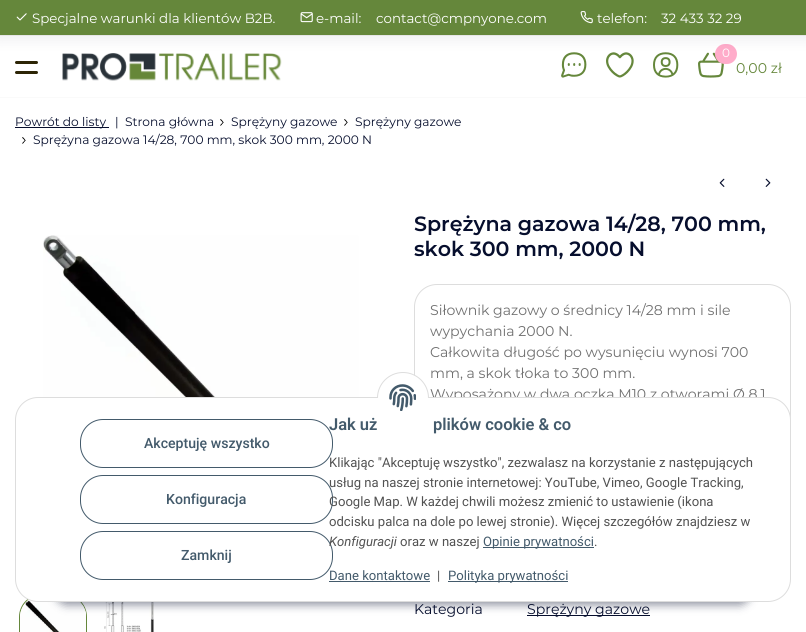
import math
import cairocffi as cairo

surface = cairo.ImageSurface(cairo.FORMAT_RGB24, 806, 632)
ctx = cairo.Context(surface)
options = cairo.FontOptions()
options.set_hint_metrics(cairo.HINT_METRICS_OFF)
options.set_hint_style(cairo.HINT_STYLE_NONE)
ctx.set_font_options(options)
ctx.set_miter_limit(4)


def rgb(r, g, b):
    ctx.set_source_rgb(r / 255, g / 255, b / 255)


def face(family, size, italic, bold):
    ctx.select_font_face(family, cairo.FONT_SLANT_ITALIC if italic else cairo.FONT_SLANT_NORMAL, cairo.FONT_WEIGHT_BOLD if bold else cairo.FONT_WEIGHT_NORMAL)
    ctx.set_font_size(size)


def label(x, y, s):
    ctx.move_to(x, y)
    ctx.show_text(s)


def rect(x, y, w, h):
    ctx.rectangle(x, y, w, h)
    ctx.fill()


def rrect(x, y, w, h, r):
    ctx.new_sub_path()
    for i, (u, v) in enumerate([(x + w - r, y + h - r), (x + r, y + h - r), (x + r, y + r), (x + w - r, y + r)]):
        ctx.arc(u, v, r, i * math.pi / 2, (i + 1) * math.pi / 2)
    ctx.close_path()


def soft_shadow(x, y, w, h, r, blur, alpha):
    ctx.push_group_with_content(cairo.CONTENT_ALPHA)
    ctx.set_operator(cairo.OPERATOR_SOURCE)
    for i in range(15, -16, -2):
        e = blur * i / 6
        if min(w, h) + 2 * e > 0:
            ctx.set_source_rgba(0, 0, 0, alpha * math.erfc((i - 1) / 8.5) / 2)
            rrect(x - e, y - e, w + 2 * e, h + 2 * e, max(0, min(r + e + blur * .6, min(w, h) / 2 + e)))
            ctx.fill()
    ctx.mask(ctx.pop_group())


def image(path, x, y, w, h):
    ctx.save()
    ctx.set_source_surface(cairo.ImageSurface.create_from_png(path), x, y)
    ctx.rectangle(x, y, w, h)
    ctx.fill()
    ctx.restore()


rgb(255, 255, 255)
ctx.paint()
rgb(45, 37, 6)
rrect(15, 61, 23, 3, 1.5)
ctx.fill()
image('image3.png', 62, 53, 220, 28)
image('image4.png', 561, 52, 26, 26)
image('image5.png', 606, 52, 28, 26)
image('image6.png', 653, 52, 26, 26)
image('image7.png', 698, 52, 26, 26)
face('Montserrat', 14.1, 0, 0)
rgb(101, 135, 59)
label(736, 73, '0,00 zł')
rgb(255, 172, 202)
rrect(715, 44, 22, 20, 10)
ctx.fill()
rgb(6, 14, 45)
soft_shadow(-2, 0, 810, 40, 0, 7.5, 0.07)
rgb(101, 135, 59)
rect(0, 0, 806, 35)
rgb(230, 230, 230)
rect(0, 35, 806, 1)
image('image0.png', 16, 13, 11, 8)
face('Montserrat', 13.4, 0, 0)
rgb(255, 255, 255)
label(32, 23, 'Specjalne warunki dla klientów B2B.')
image('image1.png', 300, 12, 13, 11)
label(316, 23, 'e-mail:')
label(376, 23, 'contact@cmpnyone.com')
image('image2.png', 580, 11, 13, 13)
label(597, 23, 'telefon:')
label(661, 23, '32 433 32 29')
rgb(250, 250, 250)
rect(0, 97, 806, 1)
rgb(45, 37, 6)
rrect(15, 71, 23, 3, 1.5)
ctx.fill()
face('Montserrat', 12, 0, 0)
rgb(255, 255, 255)
label(722, 57, '0')
rgb(6, 14, 45)
rect(15, 127, 94, 1)
face('Montserrat', 12.2, 0, 0)
label(15, 126, 'Powrót do listy')
label(115, 126, '|')
label(125, 126, 'Strona główna')
image('image8.png', 220, 119, 4, 7)
label(231, 126, 'Sprężyny gazowe')
image('image8.png', 344, 119, 4, 7)
label(355, 126, 'Sprężyny gazowe')
image('image8.png', 22, 137, 4, 7)
label(33, 144, 'Sprężyna gazowa 14/28, 700 mm, skok 300 mm, 2000 N')
image('image9.png', 719, 178, 6, 9)
image('image10.png', 765, 178, 6, 9)
image('image11.png', 43, 235, 316, 162)
rrect(19.5, 594.5, 67, 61, 22.5)
rgb(101, 135, 59)
ctx.set_line_width(1)
ctx.stroke()
image('image12.png', 20, 600, 66, 32)
image('image13.png', 104, 602, 50, 30)
face('Montserrat SemiBold', 20.6, 0, 0)
rgb(6, 14, 45)
label(414, 231, 'Sprężyna gazowa 14/28, 700 mm,')
label(414, 256, 'skok 300 mm, 2000 N')
rrect(414.5, 284.5, 376, 236, 22.5)
rgb(221, 221, 221)
ctx.stroke()
face('Montserrat', 14.1, 0, 0)
rgb(112, 112, 112)
label(430, 315, 'Siłownik gazowy o średnicy 14/28 mm i sile')
label(430, 336, 'wypychania 2000 N.')
label(430, 357, 'Całkowita długość po wysunięciu wynosi 700')
label(430, 378, 'mm, a skok tłoka to 300 mm.')
label(430, 399, 'Wyposażony w dwa oczka M10 z otworami Ø 8,1')
rgb(6, 14, 45)
label(414, 614, 'Kategoria')
rect(527, 615, 123, 1)
label(527, 614, 'Sprężyny gazowe')
rgb(6, 14, 45)
soft_shadow(55, 575, 696, 30, 15, 4.5, 0.45)
rgb(255, 255, 255)
rrect(15.5, 397.5, 775, 204, 22.5)
ctx.fill_preserve()
rgb(221, 221, 221)
ctx.stroke()
rgb(255, 255, 255)
ctx.arc(403, 398, 25.5, 0, 2 * math.pi)
ctx.fill_preserve()
rgb(221, 221, 221)
ctx.stroke()
rgb(255, 255, 255)
rect(377, 398, 52, 26)
image('image14.png', 389, 384, 27, 27)
rrect(80.5, 419.5, 252, 48, 22.5)
rgb(67, 90, 107)
ctx.stroke()
face('Roboto Medium', 14.1, 0, 0)
label(144, 448, 'Akceptuję wszystko')
rrect(80.5, 475.5, 252, 48, 22.5)
ctx.stroke()
label(166, 504, 'Konfiguracja')
rrect(80.5, 531.5, 252, 48, 22.5)
ctx.stroke()
label(181, 560, 'Zamknij')
face('Roboto SemiBold', 16.5, 0, 0)
label(329, 430, 'Jak uż')
label(433, 430, 'plików cookie & co')
face('Roboto', 13.1, 0, 0)
rgb(82, 82, 82)
label(329, 467, 'Klikając "Akceptuję wszystko", zezwalasz na korzystanie z następujących')
label(329, 487, 'usług na naszej stronie internetowej: YouTube, Vimeo, Google Tracking,')
label(329, 506, 'Google Map. W każdej chwili możesz zmienić to ustawienie (ikona')
label(329, 526, 'odcisku palca na dole po lewej stronie). Więcej szczegółów znajdziesz w')
face('Roboto', 13.1, 1, 0)
label(329, 546, 'Konfiguracji')
face('Roboto', 13.1, 0, 0)
label(400, 546, 'oraz w naszej')
rgb(67, 90, 107)
rect(483, 547, 111, 1)
label(483, 546, 'Opinie prywatności')
rgb(82, 82, 82)
label(594, 546, '.')
rgb(67, 90, 107)
label(329, 580, 'Dane kontaktowe')
rect(329, 581, 101, 1)
rgb(82, 82, 82)
label(437, 580, '|')
rgb(67, 90, 107)
rect(448, 581, 120, 1)
label(448, 580, 'Polityka prywatności')
surface.write_to_png('render.png')
